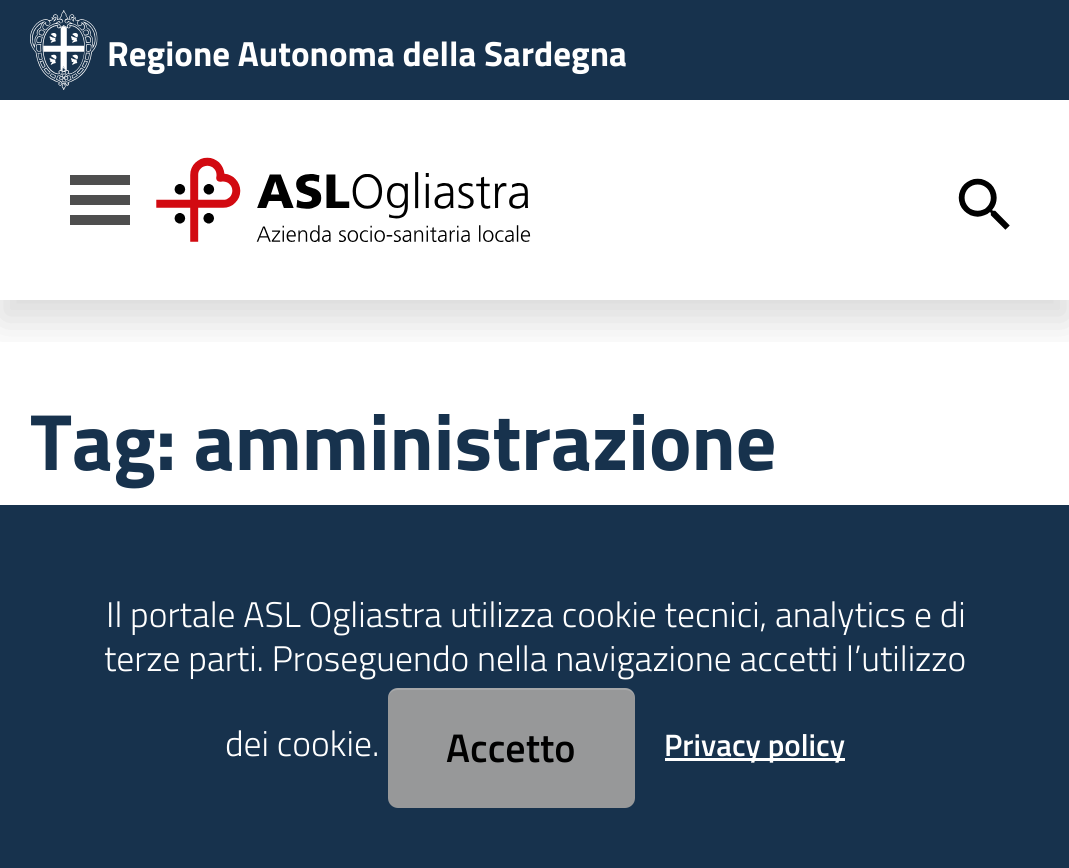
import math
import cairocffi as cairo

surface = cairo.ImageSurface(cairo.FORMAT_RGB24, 1069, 868)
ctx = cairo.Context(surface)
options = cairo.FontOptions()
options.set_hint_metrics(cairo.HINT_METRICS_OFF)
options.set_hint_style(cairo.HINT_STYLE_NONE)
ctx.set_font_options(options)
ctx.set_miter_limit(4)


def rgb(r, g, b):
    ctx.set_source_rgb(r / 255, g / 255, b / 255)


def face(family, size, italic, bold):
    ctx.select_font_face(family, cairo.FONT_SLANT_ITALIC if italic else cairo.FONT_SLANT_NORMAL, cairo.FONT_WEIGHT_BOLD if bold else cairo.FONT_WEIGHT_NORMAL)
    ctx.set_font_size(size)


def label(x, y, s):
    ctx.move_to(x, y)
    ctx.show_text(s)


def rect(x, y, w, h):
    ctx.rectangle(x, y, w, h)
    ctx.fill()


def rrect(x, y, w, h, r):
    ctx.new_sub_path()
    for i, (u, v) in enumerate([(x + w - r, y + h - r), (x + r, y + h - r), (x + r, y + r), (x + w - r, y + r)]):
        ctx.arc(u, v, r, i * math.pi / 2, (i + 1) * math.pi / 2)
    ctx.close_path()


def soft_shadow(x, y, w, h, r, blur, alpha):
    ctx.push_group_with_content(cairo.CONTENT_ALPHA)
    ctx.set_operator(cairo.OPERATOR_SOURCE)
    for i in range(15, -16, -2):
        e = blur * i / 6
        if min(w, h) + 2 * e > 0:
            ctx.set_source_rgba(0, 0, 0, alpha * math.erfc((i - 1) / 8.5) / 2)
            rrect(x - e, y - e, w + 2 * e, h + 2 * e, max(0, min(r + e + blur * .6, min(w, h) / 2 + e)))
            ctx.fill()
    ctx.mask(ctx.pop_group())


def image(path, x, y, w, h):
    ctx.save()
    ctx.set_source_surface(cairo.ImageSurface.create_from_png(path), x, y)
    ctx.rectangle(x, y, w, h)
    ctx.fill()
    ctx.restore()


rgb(255, 255, 255)
ctx.paint()
ctx.save()
ctx.rectangle(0, 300, 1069, 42)
ctx.clip()
rgb(0, 0, 0)
soft_shadow(0, 20, 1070, 300, 0, 20, 0.15)
ctx.restore()
rgb(23, 50, 77)
rect(0, 0, 1069, 100)
image('image0.png', 30, 10, 68, 80)
face('Titillium Web', 35, 0, 1)
rgb(255, 255, 255)
label(107, 66, 'Regione Autonoma della Sardegna')
rgb(78, 78, 78)
rect(70, 175, 60, 10)
rect(70, 195, 60, 10)
rect(70, 215, 60, 10)
image('image1.png', 156, 157, 375, 85)
image('image2.png', 958, 178, 52, 52)
face('Titillium Web', 80, 0, 1)
rgb(23, 50, 77)
label(30, 470, 'Tag: amministrazione')
rect(0, 505, 1069, 363)
face('Titillium Web Light', 35.6, 0, 0)
rgb(255, 255, 255)
label(106, 627, 'Il portale ASL Ogliastra utilizza cookie tecnici, analytics e di')
label(104, 671, 'terze parti. Proseguendo nella navigazione accetti l’utilizzo')
label(225, 756, 'dei cookie.')
rgb(151, 152, 153)
rrect(388, 688, 247, 120, 10)
ctx.fill()
ctx.set_source_rgba(1, 1, 1, 0.15)
ctx.new_path()
ctx.move_to(398, 690)
ctx.line_to(625, 690)
ctx.curve_to(631, 690, 635, 694, 635, 700)
ctx.line_to(635, 698)
ctx.curve_to(635, 692, 631, 688, 625, 688)
ctx.line_to(398, 688)
ctx.curve_to(392, 688, 388, 692, 388, 698)
ctx.line_to(388, 700)
ctx.curve_to(388, 694, 392, 690, 398, 690)
ctx.close_path()
ctx.fill()
face('Titillium Web SemiBold', 40, 0, 0)
rgb(0, 0, 0)
label(446, 762, 'Accetto')
rgb(255, 255, 255)
rect(665, 758, 180, 3)
face('Titillium Web SemiBold', 31, 0, 0)
label(664, 756, 'Privacy policy')
surface.write_to_png('render.png')
